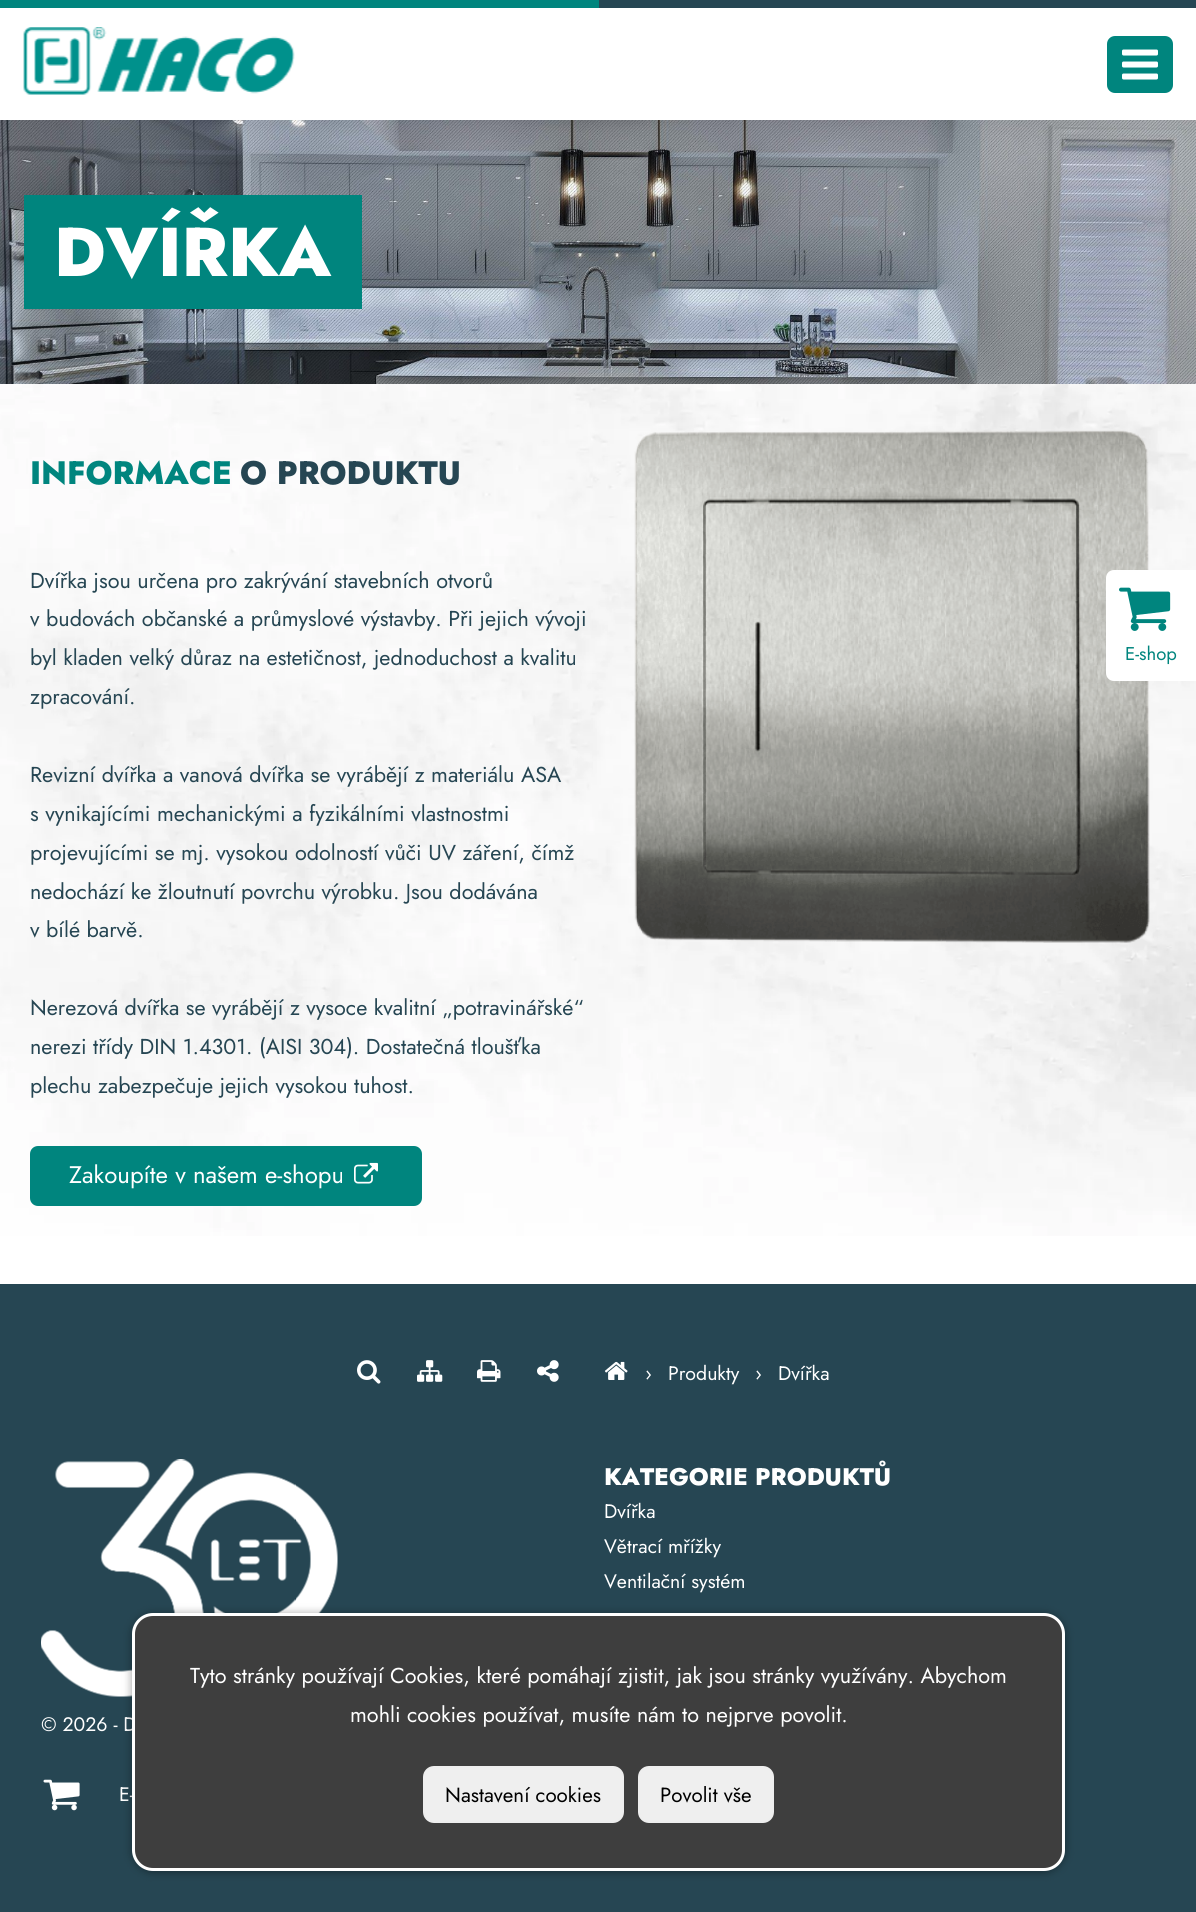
import math
import cairocffi as cairo

surface = cairo.ImageSurface(cairo.FORMAT_RGB24, 1196, 1912)
ctx = cairo.Context(surface)
options = cairo.FontOptions()
options.set_hint_metrics(cairo.HINT_METRICS_OFF)
options.set_hint_style(cairo.HINT_STYLE_NONE)
ctx.set_font_options(options)
ctx.set_miter_limit(4)


def rgb(r, g, b):
    ctx.set_source_rgb(r / 255, g / 255, b / 255)


def face(family, size, italic, bold):
    ctx.select_font_face(family, cairo.FONT_SLANT_ITALIC if italic else cairo.FONT_SLANT_NORMAL, cairo.FONT_WEIGHT_BOLD if bold else cairo.FONT_WEIGHT_NORMAL)
    ctx.set_font_size(size)


def label(x, y, s):
    ctx.move_to(x, y)
    ctx.show_text(s)


def rect(x, y, w, h):
    ctx.rectangle(x, y, w, h)
    ctx.fill()


def rrect(x, y, w, h, r):
    ctx.new_sub_path()
    for i, (u, v) in enumerate([(x + w - r, y + h - r), (x + r, y + h - r), (x + r, y + r), (x + w - r, y + r)]):
        ctx.arc(u, v, r, i * math.pi / 2, (i + 1) * math.pi / 2)
    ctx.close_path()


def soft_shadow(x, y, w, h, r, blur, alpha):
    ctx.push_group_with_content(cairo.CONTENT_ALPHA)
    ctx.set_operator(cairo.OPERATOR_SOURCE)
    for i in range(15, -16, -2):
        e = blur * i / 6
        if min(w, h) + 2 * e > 0:
            ctx.set_source_rgba(0, 0, 0, alpha * math.erfc((i - 1) / 8.5) / 2)
            rrect(x - e, y - e, w + 2 * e, h + 2 * e, max(0, min(r + e + blur * .6, min(w, h) / 2 + e)))
            ctx.fill()
    ctx.mask(ctx.pop_group())


def image(path, x, y, w, h):
    ctx.save()
    ctx.set_source_surface(cairo.ImageSurface.create_from_png(path), x, y)
    ctx.rectangle(x, y, w, h)
    ctx.fill()
    ctx.restore()


rgb(255, 255, 255)
ctx.paint()
rgb(0, 133, 126)
rect(0, 0, 599, 8)
rgb(38, 70, 83)
rect(599, 0, 597, 8)
image('image0.png', 23, 27, 272, 68)
rgb(0, 133, 126)
rrect(1107, 36, 66, 57, 8)
ctx.fill()
image('image1.png', 1122, 49, 36, 31)
image('image2.png', 0, 120, 1196, 264)
rect(24, 195, 338, 114)
face('Jost ExtraBold', 69, 0, 0)
rgb(255, 255, 255)
label(54, 276, 'DVÍŘKA')
image('image3.png', 0, 384, 1196, 852)
face('Jost ExtraBold', 32.5, 0, 0)
rgb(0, 133, 126)
label(30, 484, 'INFORMACE')
rgb(38, 70, 83)
label(240, 484, 'O PRODUKTU')
face('Jost', 21.6, 0, 0)
label(30, 588, 'Dvířka jsou určena pro zakrývání stavebních otvorů')
label(30, 626, 'v budovách občanské a průmyslové výstavby. Při jejich vývoji')
label(30, 665, 'byl kladen velký důraz na estetičnost, jednoduchost a kvalitu')
label(30, 704, 'zpracování.')
label(30, 782, 'Revizní dvířka a vanová dvířka se vyrábějí z materiálu ASA')
label(30, 821, 's vynikajícími mechanickými a fyzikálními vlastnostmi')
label(30, 860, 'projevujícími se mj. vysokou odolností vůči UV záření, čímž')
label(30, 899, 'nedochází ke žloutnutí povrchu výrobku. Jsou dodávána')
label(30, 937, 'v bílé barvě.')
label(30, 1015, 'Nerezová dvířka se vyrábějí z vysoce kvalitní „potravinářské“')
label(30, 1054, 'nerezi třídy DIN 1.4301. (AISI 304). Dostatečná tloušťka')
label(30, 1093, 'plechu zabezpečuje jejich vysokou tuhost.')
rgb(0, 133, 126)
rrect(31, 1147, 390, 58, 7)
ctx.fill_preserve()
ctx.stroke()
face('Jost', 24, 0, 0)
rgb(255, 255, 255)
label(69, 1183, 'Zakoupíte v našem e-shopu')
image('image4.png', 354, 1162, 24, 22)
image('image5.png', 634, 430, 516, 513)
ctx.new_path()
ctx.move_to(1114, 570)
ctx.line_to(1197, 570)
ctx.line_to(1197, 681)
ctx.line_to(1114, 681)
ctx.curve_to(1109.5, 681, 1106, 677.5, 1106, 673)
ctx.line_to(1106, 578)
ctx.curve_to(1106, 573.5, 1109.5, 570, 1114, 570)
ctx.close_path()
ctx.fill()
image('image6.png', 1119, 587, 52, 44)
face('Jost', 18.5, 0, 0)
rgb(0, 133, 126)
label(1125, 660, 'E-shop')
rgb(38, 70, 83)
rect(0, 1284, 1196, 628)
image('image7.png', 357, 1360, 24, 24)
image('image8.png', 417, 1360, 26, 22)
image('image9.png', 477, 1360, 24, 22)
image('image10.png', 537, 1360, 22, 22)
image('image11.png', 604, 1361, 24, 19)
face('Jost', 19.5, 0, 0)
rgb(255, 255, 255)
label(645, 1380, '›')
label(668, 1380, 'Produkty')
label(755, 1380, '›')
label(778, 1380, 'Dvířka')
face('Jost ExtraBold', 24, 0, 0)
label(604, 1485, 'KATEGORIE PRODUKTŮ')
face('Jost', 19.5, 0, 0)
label(604, 1518, 'Dvířka')
label(604, 1553, 'Větrací mřížky')
label(604, 1588, 'Ventilační systém')
image('image12.png', 41, 1459, 297, 238)
label(41, 1731, '© 2026 - D')
image('image13.png', 43, 1779, 37, 32)
label(119, 1801, 'E-')
rgb(0, 0, 0)
soft_shadow(132, 1614, 933, 258, 21, 4.5, 0.4)
rgb(62, 62, 62)
rrect(133.5, 1614.5, 930, 255, 19.5)
ctx.fill_preserve()
rgb(255, 255, 255)
ctx.set_line_width(3)
ctx.stroke()
face('Jost', 21.6, 0, 0)
label(190, 1683, 'Tyto stránky používají Cookies, které pomáhají zjistit, jak jsou stránky využívány. Abychom')
label(350, 1722, 'mohli cookies používat, musíte nám to nejprve povolit.')
rgb(239, 239, 239)
rrect(424, 1767, 199, 55, 10)
ctx.fill_preserve()
rgb(238, 238, 238)
ctx.set_line_width(2)
ctx.stroke()
face('Jost', 20.5, 0, 0)
rgb(0, 0, 0)
label(445, 1802, 'Nastavení cookies')
rgb(239, 239, 239)
rrect(639, 1767, 134, 55, 10)
ctx.fill_preserve()
rgb(238, 238, 238)
ctx.stroke()
rgb(0, 0, 0)
label(660, 1802, 'Povolit vše')
surface.write_to_png('render.png')
